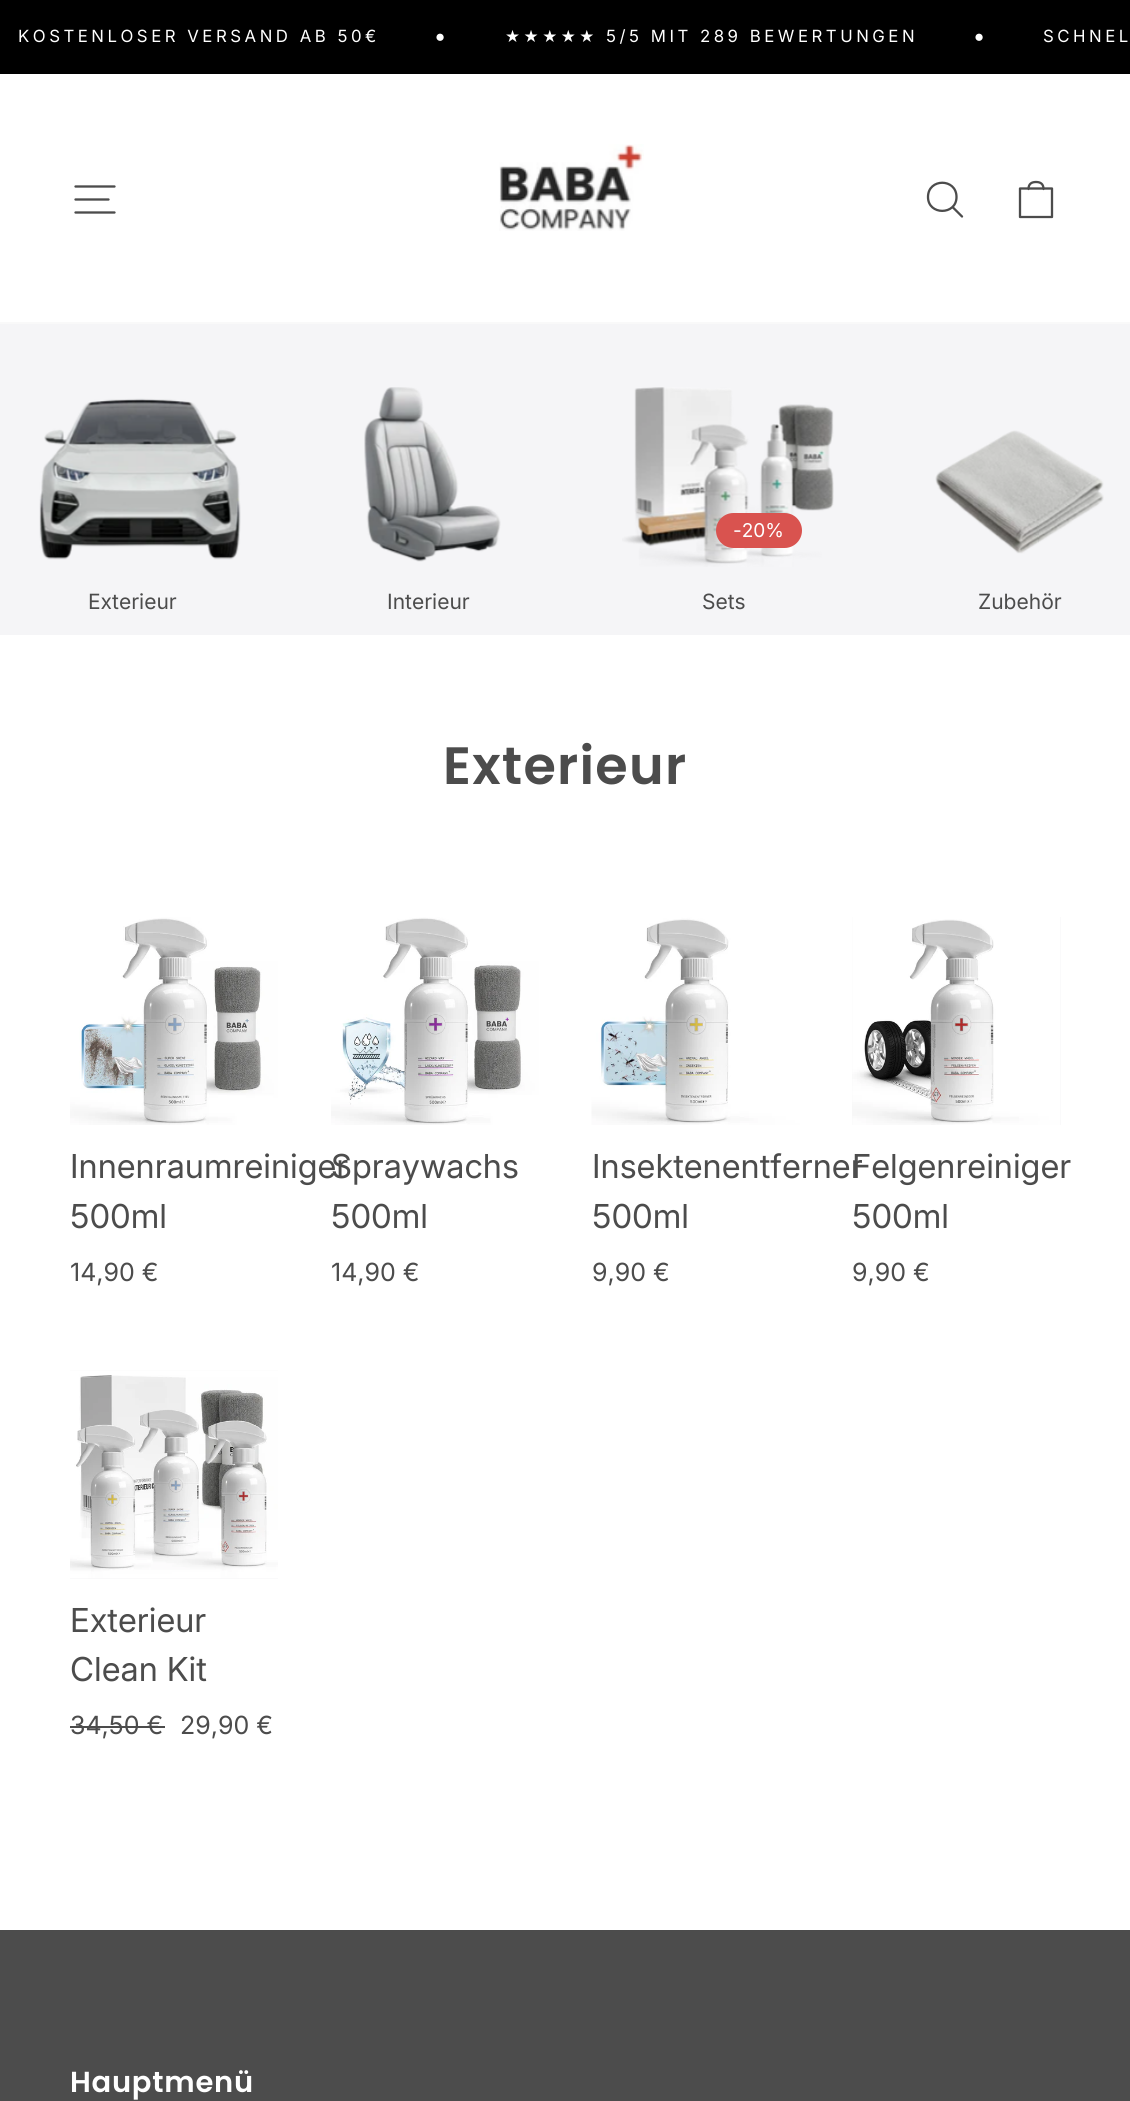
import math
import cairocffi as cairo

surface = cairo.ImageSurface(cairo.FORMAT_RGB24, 1130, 2101)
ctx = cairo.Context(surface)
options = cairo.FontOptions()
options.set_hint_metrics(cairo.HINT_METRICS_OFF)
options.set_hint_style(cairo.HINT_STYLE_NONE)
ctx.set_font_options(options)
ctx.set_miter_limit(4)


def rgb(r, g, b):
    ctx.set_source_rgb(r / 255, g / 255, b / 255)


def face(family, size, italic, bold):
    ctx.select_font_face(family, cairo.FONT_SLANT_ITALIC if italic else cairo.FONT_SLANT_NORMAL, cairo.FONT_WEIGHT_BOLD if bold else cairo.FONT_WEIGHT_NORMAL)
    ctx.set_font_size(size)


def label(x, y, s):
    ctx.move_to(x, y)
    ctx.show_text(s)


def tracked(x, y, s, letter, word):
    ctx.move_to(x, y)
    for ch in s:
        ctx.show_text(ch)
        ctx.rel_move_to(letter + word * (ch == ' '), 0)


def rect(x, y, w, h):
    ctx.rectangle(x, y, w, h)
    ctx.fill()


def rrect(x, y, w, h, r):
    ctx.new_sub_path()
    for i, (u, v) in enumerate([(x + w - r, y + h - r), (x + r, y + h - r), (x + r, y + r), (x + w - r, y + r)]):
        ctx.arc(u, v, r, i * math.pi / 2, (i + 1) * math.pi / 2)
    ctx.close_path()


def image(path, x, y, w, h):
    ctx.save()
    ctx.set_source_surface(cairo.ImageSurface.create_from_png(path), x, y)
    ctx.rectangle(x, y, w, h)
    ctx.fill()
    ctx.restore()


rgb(255, 255, 255)
ctx.paint()
rgb(0, 0, 0)
rect(0, 0, 1130, 74)
face('Inter', 16.8, 0, 0)
rgb(255, 255, 255)
tracked(18, 42, 'KOSTENLOSER VERSAND AB 50€', 3.5, 0)
face('Liberation Sans', 16.8, 0, 0)
tracked(435, 42, '●', 3.5, 0)
face('DejaVu Sans', 16.8, 0, 0)
tracked(505, 42, '★★★★★', 3.5, 0)
face('Inter', 16.8, 0, 0)
tracked(606, 42, '5/5 MIT 289 BEWERTUNGEN', 3.5, 0)
face('Liberation Sans', 16.8, 0, 0)
tracked(974, 42, '●', 3.5, 0)
face('Inter', 16.8, 0, 0)
tracked(1043, 42, 'SCHNEL', 3.5, 0)
rgb(249, 249, 249)
rect(0, 322, 1130, 2)
ctx.new_path()
ctx.move_to(75.5, 186.5)
ctx.line_to(114.5, 186.5)
ctx.move_to(75.5, 199.5)
ctx.line_to(108.5, 199.5)
ctx.move_to(75.5, 212.5)
ctx.line_to(114.5, 212.5)
rgb(76, 76, 76)
ctx.set_line_width(2.3)
ctx.set_line_cap(cairo.LINE_CAP_ROUND)
ctx.set_line_join(cairo.LINE_JOIN_ROUND)
ctx.stroke()
image('image0.png', 499, 144, 145, 87)
ctx.new_path()
ctx.move_to(956.5, 197)
ctx.curve_to(956.5, 215.5, 928, 215.5, 928, 197)
ctx.curve_to(928, 178, 956.5, 178, 956.5, 197)
ctx.close_path()
ctx.move_to(962, 216.5)
ctx.line_to(952.5, 207)
ctx.stroke()
ctx.new_path()
ctx.move_to(1020, 188.5)
ctx.line_to(1052, 188.5)
ctx.line_to(1052, 217)
ctx.line_to(1020, 217)
ctx.close_path()
ctx.move_to(1028.5, 189)
ctx.curve_to(1028.5, 183.5, 1032, 182, 1036, 182)
ctx.curve_to(1040, 182, 1043.5, 183.5, 1043.5, 189)
ctx.stroke()
rgb(245, 245, 247)
rect(0, 324, 1130, 311)
image('image1.png', 39, 398, 202, 162)
face('Inter', 21, 0, 0)
rgb(76, 76, 76)
label(88, 609, 'Exterieur')
image('image2.png', 364, 387, 137, 175)
label(387, 609, 'Interieur')
image('image3.png', 622, 387, 212, 180)
rgb(217, 83, 79)
rrect(716, 513, 86, 35, 17.5)
ctx.fill()
face('Inter', 19, 0, 0)
rgb(255, 255, 255)
label(733, 537, '-20%')
face('Inter', 21, 0, 0)
rgb(76, 76, 76)
label(702, 609, 'Sets')
image('image4.png', 935, 430, 169, 124)
label(978, 609, 'Zubehör')
face('Poppins SemiBold', 52.5, 0, 0)
tracked(443, 784, 'Exterieur', 1.25, 0)
image('image5.png', 70, 917, 208, 208)
face('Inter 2', 33, 0, 0)
label(70, 1178, 'Innenraumreiniger')
label(70, 1228, '500ml')
face('Inter', 25, 0, 0)
label(70, 1281, '14,90 €')
image('image6.png', 331, 917, 208, 208)
face('Inter 2', 33, 0, 0)
label(331, 1178, 'Spraywachs')
label(331, 1228, '500ml')
face('Inter', 25, 0, 0)
label(331, 1281, '14,90 €')
image('image7.png', 591, 917, 209, 208)
face('Inter 2', 33, 0, 0)
label(592, 1178, 'Insektenentferner')
label(592, 1228, '500ml')
face('Inter', 25, 0, 0)
label(592, 1281, '9,90 €')
rgb(245, 245, 247)
rect(852, 917, 209, 208)
image('image8.png', 852, 917, 209, 208)
face('Inter 2', 33, 0, 0)
rgb(76, 76, 76)
label(852, 1178, 'Felgenreiniger')
label(852, 1228, '500ml')
face('Inter', 25, 0, 0)
label(852, 1281, '9,90 €')
rgb(245, 245, 247)
rect(70, 1370, 208, 209)
image('image9.png', 70, 1370, 208, 209)
face('Inter 2', 33, 0, 0)
rgb(76, 76, 76)
label(70, 1632, 'Exterieur')
label(70, 1681, 'Clean Kit')
face('Inter', 25, 0, 0)
label(70, 1734, '34,50 €')
rect(70, 1726, 95, 2)
label(180, 1734, '29,90 €')
rect(0, 1930, 1130, 171)
face('Poppins SemiBold', 29, 0, 0)
rgb(255, 255, 255)
tracked(70, 2092, 'Hauptmenü', 0.75, 0)
surface.write_to_png('render.png')
